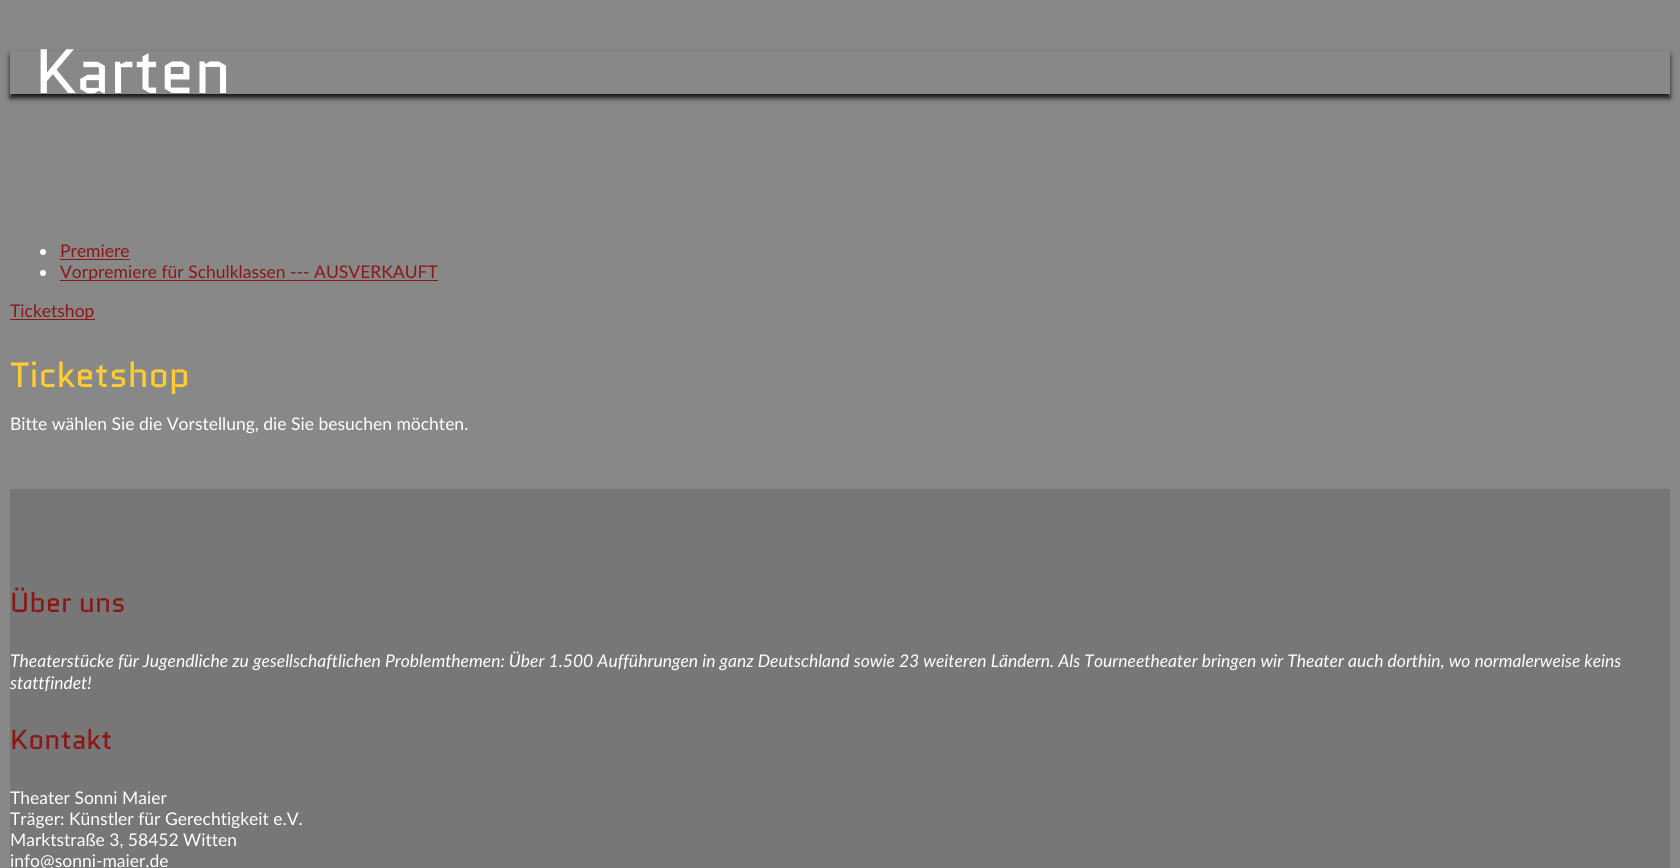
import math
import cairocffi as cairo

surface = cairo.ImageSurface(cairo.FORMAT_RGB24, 1680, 868)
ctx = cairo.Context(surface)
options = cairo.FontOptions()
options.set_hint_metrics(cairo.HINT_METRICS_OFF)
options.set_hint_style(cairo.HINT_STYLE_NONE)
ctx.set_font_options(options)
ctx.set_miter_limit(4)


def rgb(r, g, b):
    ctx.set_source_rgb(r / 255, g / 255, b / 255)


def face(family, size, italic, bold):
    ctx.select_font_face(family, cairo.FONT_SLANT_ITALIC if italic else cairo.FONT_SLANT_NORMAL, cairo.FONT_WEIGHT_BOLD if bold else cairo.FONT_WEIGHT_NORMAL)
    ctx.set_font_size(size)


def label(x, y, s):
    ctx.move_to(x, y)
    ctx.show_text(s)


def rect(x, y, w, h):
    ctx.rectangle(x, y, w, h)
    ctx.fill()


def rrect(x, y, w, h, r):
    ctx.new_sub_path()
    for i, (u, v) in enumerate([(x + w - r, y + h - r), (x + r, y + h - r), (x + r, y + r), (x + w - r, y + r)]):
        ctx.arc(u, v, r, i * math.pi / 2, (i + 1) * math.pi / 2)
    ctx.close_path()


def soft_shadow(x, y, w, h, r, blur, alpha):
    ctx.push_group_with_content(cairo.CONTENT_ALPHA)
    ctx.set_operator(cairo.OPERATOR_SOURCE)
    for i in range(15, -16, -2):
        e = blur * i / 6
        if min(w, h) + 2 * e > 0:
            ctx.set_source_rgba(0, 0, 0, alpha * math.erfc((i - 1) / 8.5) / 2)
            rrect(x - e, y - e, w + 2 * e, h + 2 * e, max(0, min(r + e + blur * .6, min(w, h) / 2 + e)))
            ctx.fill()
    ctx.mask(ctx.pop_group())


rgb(136, 136, 136)
ctx.paint()
ctx.save()
ctx.set_fill_rule(cairo.FILL_RULE_EVEN_ODD)
ctx.new_path()
ctx.move_to(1, 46)
ctx.line_to(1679, 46)
ctx.line_to(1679, 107)
ctx.line_to(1, 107)
ctx.close_path()
ctx.move_to(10, 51)
ctx.line_to(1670, 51)
ctx.line_to(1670, 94)
ctx.line_to(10, 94)
ctx.close_path()
ctx.clip()
rgb(20, 20, 20)
soft_shadow(10, 55, 1660, 43, 0, 2.5, 1)
ctx.restore()
face('Quantico', 62.5, 0, 0)
rgb(255, 255, 255)
label(35, 93, 'Karten')
ctx.new_path()
ctx.arc(43, 252, 3, 0, 2 * math.pi)
ctx.fill()
face('Lato', 17.5, 0, 0)
rgb(139, 24, 23)
label(60, 257, 'Premiere')
rect(60, 259, 70, 1)
rgb(255, 255, 255)
ctx.new_path()
ctx.arc(43, 273, 3, 0, 2 * math.pi)
ctx.fill()
rgb(139, 24, 23)
rect(60, 280, 378, 1)
label(60, 278, 'Vorpremiere für Schulklassen --- AUSVERKAUFT')
rect(10, 319, 85, 1)
label(10, 317, 'Ticketshop')
face('Quantico', 35, 0, 0)
rgb(255, 204, 51)
label(10, 387, 'Ticketshop')
face('Lato', 17.5, 0, 0)
rgb(255, 255, 255)
label(10, 430, 'Bitte wählen Sie die Vorstellung, die Sie besuchen möchten.')
rgb(119, 119, 119)
rect(10, 489, 1660, 379)
face('Quantico', 27.5, 0, 0)
rgb(139, 24, 23)
label(10, 612, 'Über uns')
face('Lato', 17.5, 1, 0)
rgb(255, 255, 255)
label(10, 667, 'Theaterstücke für Jugendliche zu gesellschaftlichen Problemthemen: Über 1.500 Aufführungen in ganz Deutschland sowie 23 weiteren Ländern. Als Tourneetheater bringen wir Theater auch dorthin, wo normalerweise keins')
label(10, 689, 'stattfindet!')
face('Quantico', 27.5, 0, 0)
rgb(139, 24, 23)
label(10, 749, 'Kontakt')
face('Lato', 17.5, 0, 0)
rgb(255, 255, 255)
label(10, 804, 'Theater Sonni Maier')
label(10, 825, 'Träger: Künstler für Gerechtigkeit e.V.')
label(10, 846, 'Marktstraße 3, 58452 Witten')
label(10, 867, 'info@sonni-maier.de')
surface.write_to_png('render.png')
